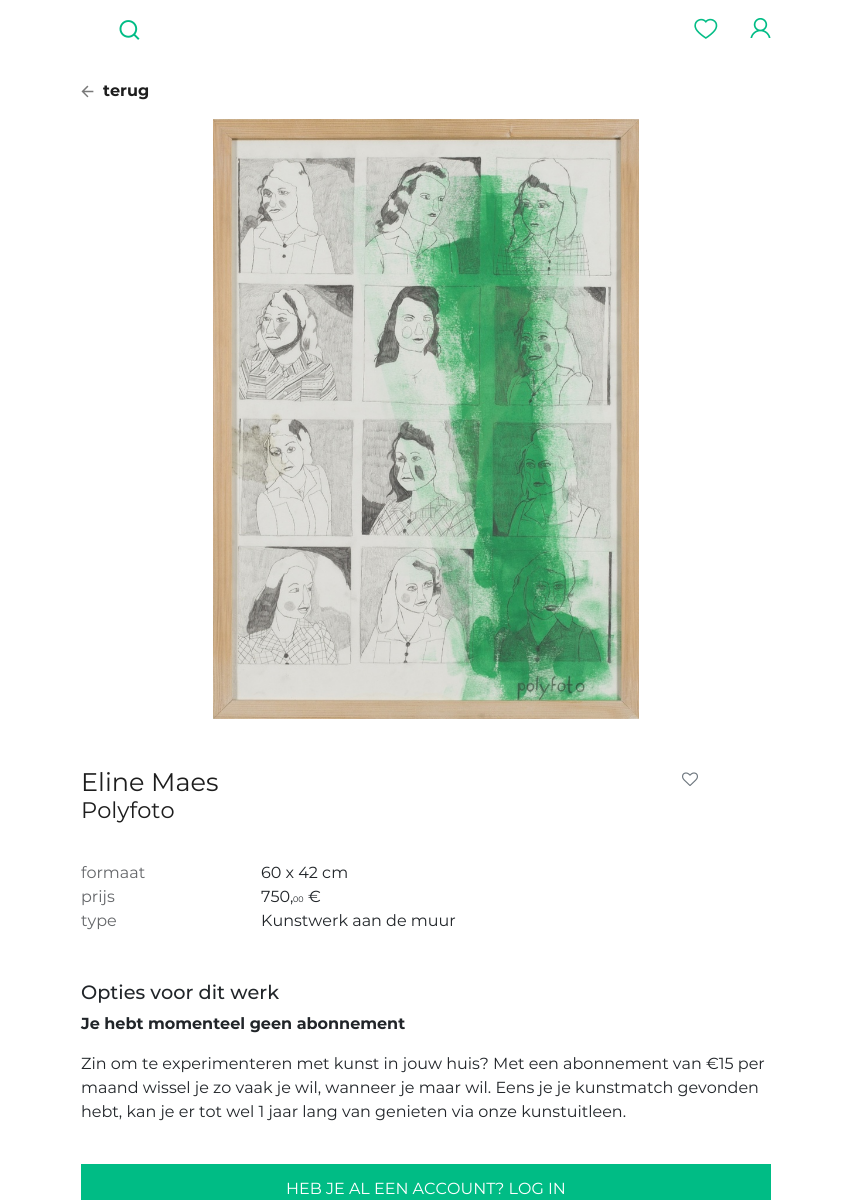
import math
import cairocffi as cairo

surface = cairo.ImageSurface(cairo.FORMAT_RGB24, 852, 1200)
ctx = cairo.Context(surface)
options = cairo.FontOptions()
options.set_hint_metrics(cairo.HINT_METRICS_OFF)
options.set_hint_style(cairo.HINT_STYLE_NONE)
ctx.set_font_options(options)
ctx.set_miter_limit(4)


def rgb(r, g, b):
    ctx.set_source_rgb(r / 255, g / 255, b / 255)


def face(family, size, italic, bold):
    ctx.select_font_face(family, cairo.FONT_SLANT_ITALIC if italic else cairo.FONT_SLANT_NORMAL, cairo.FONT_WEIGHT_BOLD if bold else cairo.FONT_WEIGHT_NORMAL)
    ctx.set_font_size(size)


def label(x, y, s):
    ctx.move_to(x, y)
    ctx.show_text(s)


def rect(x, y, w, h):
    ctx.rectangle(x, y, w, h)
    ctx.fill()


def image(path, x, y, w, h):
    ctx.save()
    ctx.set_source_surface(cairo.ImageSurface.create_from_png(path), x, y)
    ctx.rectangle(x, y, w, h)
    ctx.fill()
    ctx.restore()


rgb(255, 255, 255)
ctx.paint()
image('image0.png', 119, 20, 21, 20)
image('image1.png', 694, 18, 24, 21)
image('image2.png', 750, 18, 21, 20)
image('image3.png', 81, 85, 13, 13)
face('Montserrat', 16, 0, 1)
rgb(29, 29, 29)
label(103, 96, 'terug')
image('image4.png', 213, 119, 426, 600)
face('Montserrat', 25.5, 0, 0)
label(81, 791, 'Eline Maes')
image('image5.png', 682, 772, 16, 14)
face('Montserrat', 22.5, 0, 0)
label(81, 818, 'Polyfoto')
face('Montserrat', 16, 0, 0)
rgb(100, 102, 105)
label(81, 878, 'formaat')
rgb(33, 37, 41)
label(261, 878, '60 x 42 cm')
rgb(100, 102, 105)
label(81, 902, 'prijs')
rgb(33, 37, 41)
label(261, 902, '750,')
face('Montserrat', 8, 0, 0)
label(293, 902, '00')
face('Montserrat', 16, 0, 0)
label(308, 902, '€')
rgb(100, 102, 105)
label(81, 926, 'type')
rgb(33, 37, 41)
label(261, 926, 'Kunstwerk aan de muur')
face('Montserrat Medium', 19.25, 0, 0)
label(81, 999, 'Opties voor dit werk')
face('Montserrat', 16, 0, 1)
label(81, 1029, 'Je hebt momenteel geen abonnement')
face('Montserrat', 16, 0, 0)
label(81, 1069, 'Zin om te experimenteren met kunst in jouw huis? Met een abonnement van €15 per')
label(81, 1093, 'maand wissel je zo vaak je wil, wanneer je maar wil. Eens je je kunstmatch gevonden')
label(81, 1117, 'hebt, kan je er tot wel 1 jaar lang van genieten via onze kunstuitleen.')
rgb(0, 188, 133)
rect(81, 1164, 690, 36)
rgb(255, 255, 255)
label(286, 1194, 'HEB JE AL EEN ACCOUNT? LOG IN')
surface.write_to_png('render.png')
